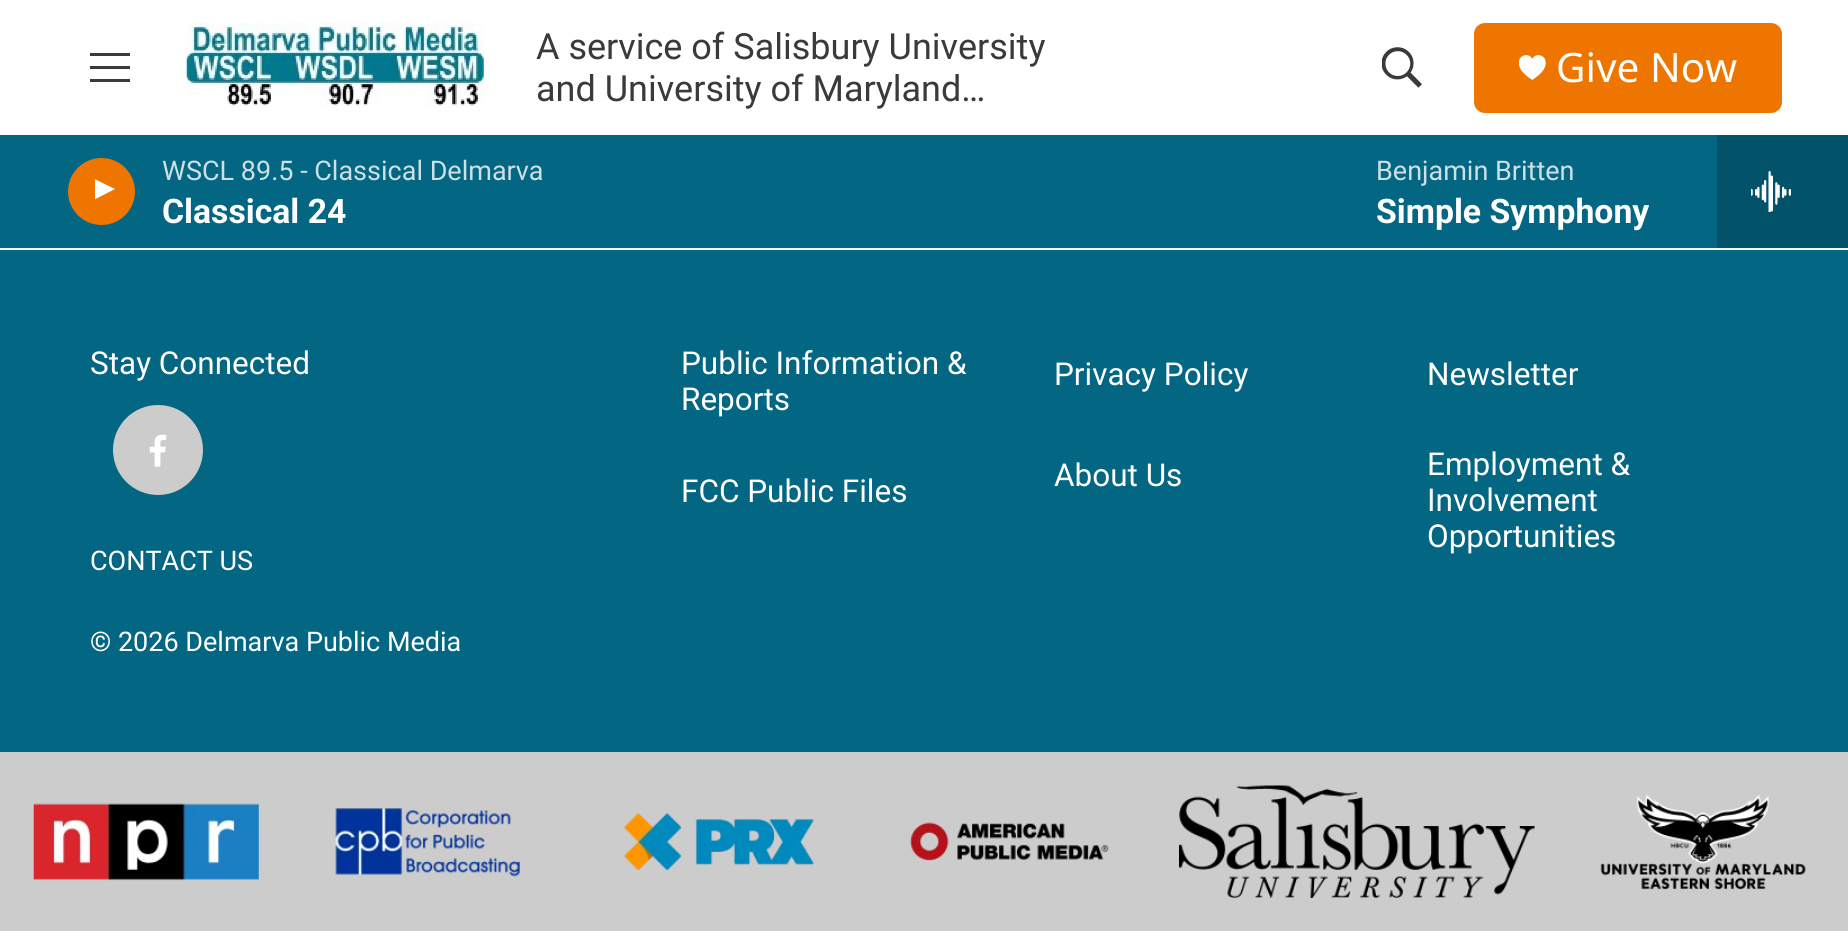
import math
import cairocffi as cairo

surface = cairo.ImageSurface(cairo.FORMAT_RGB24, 1848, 931)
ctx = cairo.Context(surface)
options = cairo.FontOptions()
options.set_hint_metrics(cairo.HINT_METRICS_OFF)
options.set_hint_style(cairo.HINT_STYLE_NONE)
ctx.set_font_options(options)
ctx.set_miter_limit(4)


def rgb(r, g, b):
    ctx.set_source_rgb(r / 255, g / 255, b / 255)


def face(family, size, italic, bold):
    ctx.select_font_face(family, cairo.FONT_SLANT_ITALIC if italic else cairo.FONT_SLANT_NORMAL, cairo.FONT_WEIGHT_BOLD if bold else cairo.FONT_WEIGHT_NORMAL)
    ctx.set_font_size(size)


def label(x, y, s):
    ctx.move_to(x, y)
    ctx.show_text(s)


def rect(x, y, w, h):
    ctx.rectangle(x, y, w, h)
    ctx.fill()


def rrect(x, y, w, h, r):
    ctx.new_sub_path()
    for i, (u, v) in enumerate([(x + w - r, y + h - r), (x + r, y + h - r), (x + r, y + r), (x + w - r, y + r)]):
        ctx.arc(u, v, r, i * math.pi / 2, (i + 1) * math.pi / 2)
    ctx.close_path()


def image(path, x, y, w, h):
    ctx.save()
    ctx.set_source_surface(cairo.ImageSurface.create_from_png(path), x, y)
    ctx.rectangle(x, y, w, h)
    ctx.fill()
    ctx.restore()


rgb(3, 102, 131)
ctx.paint()
rgb(255, 255, 255)
rect(0, 0, 1848, 135)
rgb(245, 245, 245)
rect(0, 248, 1848, 2)
rgb(56, 58, 60)
ctx.set_fill_rule(cairo.FILL_RULE_EVEN_ODD)
ctx.new_path()
ctx.move_to(90, 69)
ctx.line_to(90, 66)
ctx.line_to(130, 66)
ctx.line_to(130, 69)
ctx.close_path()
ctx.move_to(90, 56)
ctx.line_to(90, 53)
ctx.line_to(130, 53)
ctx.line_to(130, 56)
ctx.close_path()
ctx.move_to(90, 82)
ctx.line_to(90, 79)
ctx.line_to(130, 79)
ctx.line_to(130, 82)
ctx.close_path()
ctx.fill()
image('image0.png', 186, 22, 298, 85)
face('Roboto', 36, 0, 0)
label(536, 59, 'A service of Salisbury University')
label(536, 101, 'and University of Maryland…')
image('image1.png', 1382, 47, 40, 41)
rgb(237, 117, 0)
rrect(1474, 23, 308, 90, 11)
ctx.fill()
image('image2.png', 1519, 55, 27, 25)
face('Noto Sans', 40.5, 0, 0)
rgb(255, 255, 255)
label(1556, 82, 'Give Now')
rgb(237, 117, 0)
ctx.new_path()
ctx.arc(101.5, 191.5, 33.5, 0, 2 * math.pi)
ctx.fill()
ctx.save()
ctx.set_fill_rule(cairo.FILL_RULE_WINDING)
ctx.rectangle(95, 176, 25, 33)
ctx.clip()
rgb(255, 255, 255)
ctx.new_path()
ctx.move_to(93.5, 178.5)
ctx.line_to(115, 189)
ctx.line_to(93.5, 200)
ctx.close_path()
ctx.fill()
ctx.restore()
face('Roboto', 27, 0, 0)
rgb(205, 224, 230)
label(162, 180, 'WSCL 89.5 - Classical Delmarva')
face('Roboto', 33.75, 0, 1)
rgb(255, 255, 255)
label(162, 223, 'Classical 24')
face('Roboto', 27, 0, 0)
rgb(205, 224, 230)
label(1376, 180, 'Benjamin Britten')
face('Roboto', 33.75, 0, 1)
rgb(255, 255, 255)
label(1376, 223, 'Simple Symphony')
rgb(2, 82, 105)
rect(1717, 135, 131, 113)
image('image3.png', 1751, 171, 40, 41)
face('Roboto', 31.5, 0, 0)
rgb(255, 255, 255)
label(90, 374, 'Stay Connected')
rgb(204, 204, 204)
ctx.new_path()
ctx.arc(158, 450, 45, 0, 2 * math.pi)
ctx.fill()
image('image4.png', 149, 434, 18, 33)
face('Roboto', 27, 0, 0)
rgb(255, 255, 255)
label(90, 570, 'CONTACT US')
label(90, 651, '© 2026 Delmarva Public Media')
face('Roboto', 31.5, 0, 0)
label(681, 374, 'Public Information &')
label(681, 410, 'Reports')
label(1054, 385, 'Privacy Policy')
label(1427, 385, 'Newsletter')
label(1054, 486, 'About Us')
label(1427, 475, 'Employment &')
label(1427, 511, 'Involvement')
label(1427, 547, 'Opportunities')
label(681, 502, 'FCC Public Files')
rgb(204, 204, 204)
rect(0, 752, 1848, 179)
image('image5.png', 33, 803, 226, 78)
image('image6.png', 335, 808, 185, 69)
image('image7.png', 624, 813, 190, 57)
image('image8.png', 910, 822, 199, 39)
image('image9.png', 1179, 785, 356, 113)
image('image10.png', 1600, 794, 206, 96)
surface.write_to_png('render.png')
